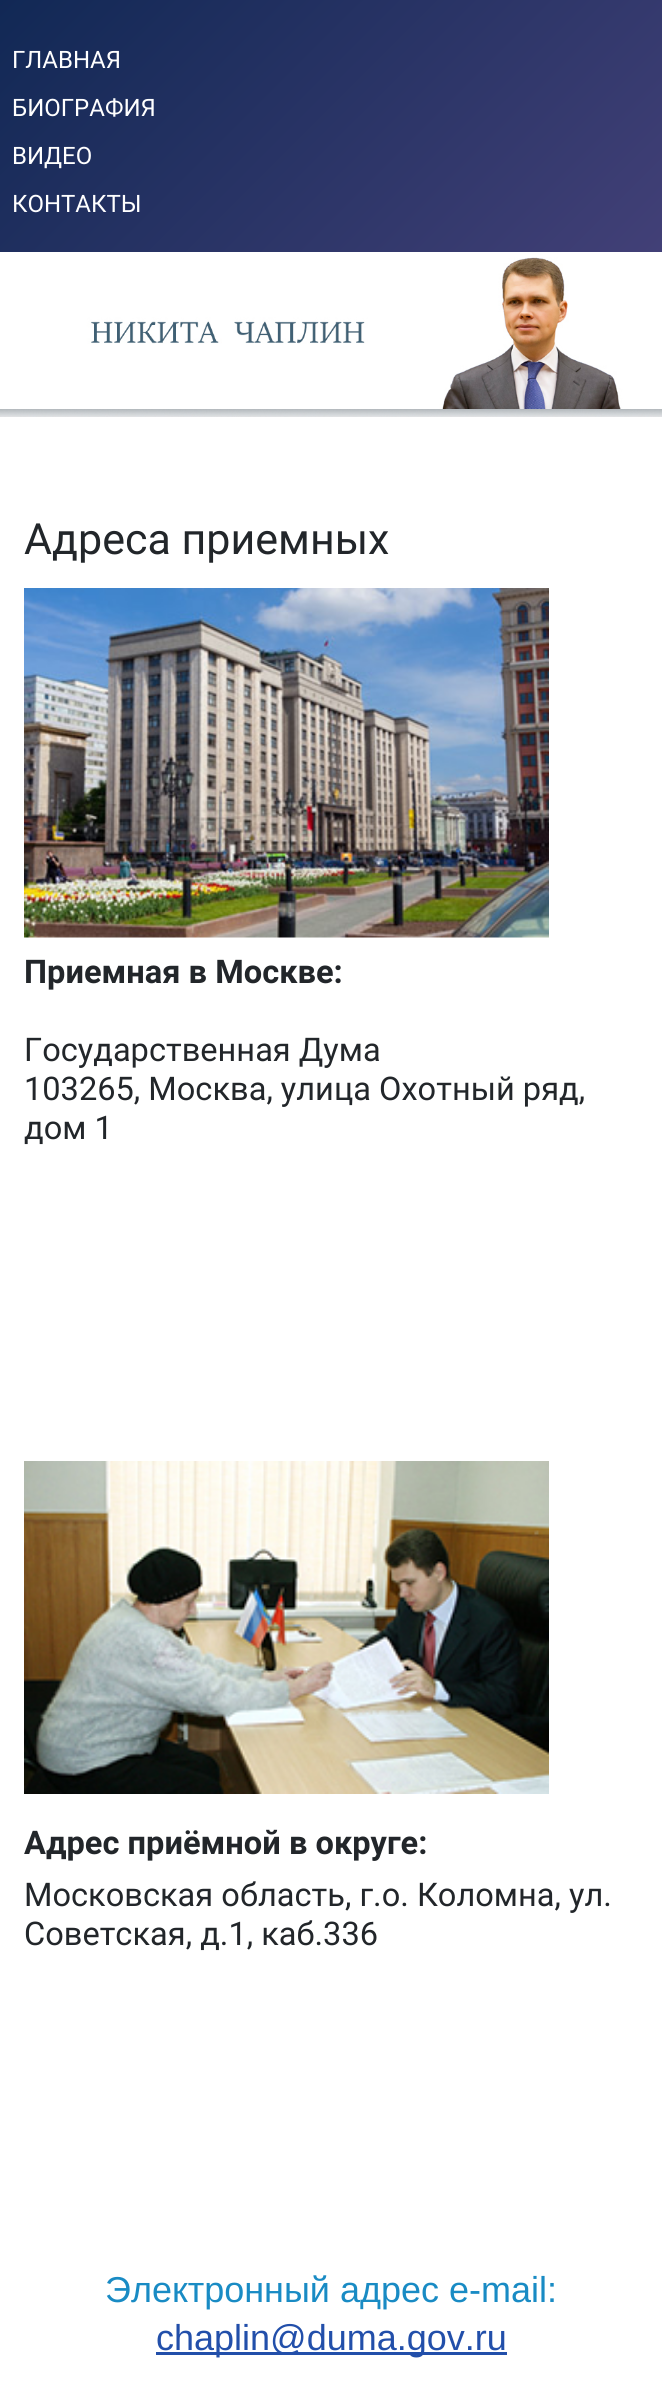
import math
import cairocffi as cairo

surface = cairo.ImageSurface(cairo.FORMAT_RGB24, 662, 2402)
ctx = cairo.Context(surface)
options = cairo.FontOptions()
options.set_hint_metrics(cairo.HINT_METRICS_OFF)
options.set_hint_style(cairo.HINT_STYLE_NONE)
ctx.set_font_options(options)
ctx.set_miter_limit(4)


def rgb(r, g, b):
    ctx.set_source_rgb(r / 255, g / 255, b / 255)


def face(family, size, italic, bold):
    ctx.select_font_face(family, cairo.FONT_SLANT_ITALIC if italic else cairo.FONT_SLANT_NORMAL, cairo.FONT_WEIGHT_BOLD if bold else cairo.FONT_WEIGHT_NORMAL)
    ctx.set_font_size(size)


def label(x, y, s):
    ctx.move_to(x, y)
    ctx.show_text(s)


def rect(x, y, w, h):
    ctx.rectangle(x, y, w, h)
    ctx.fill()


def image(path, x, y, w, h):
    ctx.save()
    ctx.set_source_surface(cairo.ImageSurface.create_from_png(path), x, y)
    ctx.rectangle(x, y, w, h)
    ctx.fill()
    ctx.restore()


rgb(255, 255, 255)
ctx.paint()
gradient = cairo.LinearGradient(103, -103, 560, 355)
gradient.add_color_stop_rgba(0, 0.067, 0.157, 0.333, 1)
gradient.add_color_stop_rgba(1, 0.259, 0.251, 0.467, 1)
ctx.set_source(gradient)
rect(0, 0, 662, 252)
face('Roboto', 24, 0, 0)
rgb(255, 255, 255)
label(12, 68, 'ГЛАВНАЯ')
label(12, 116, 'БИОГРАФИЯ')
label(12, 164, 'ВИДЕО')
label(12, 212, 'КОНТАКТЫ')
image('image0.png', 0, 257, 662, 160)
face('Roboto', 43, 0, 0)
rgb(34, 38, 42)
label(24, 554, 'Адреса приемных')
image('image1.png', 24, 588, 525, 350)
face('Roboto', 32.6, 0, 1)
label(24, 983, 'Приемная в Москве:')
face('Roboto', 32.6, 0, 0)
label(24, 1061, 'Государственная Дума')
label(24, 1100, '103265, Москва, улица Охотный ряд,')
label(24, 1139, 'дом 1')
image('image2.png', 24, 1461, 525, 333)
face('Roboto', 32.6, 0, 1)
label(24, 1854, 'Адрес приёмной в округе:')
face('Roboto', 32.6, 0, 0)
label(24, 1906, 'Московская область, г.о. Коломна, ул.')
label(24, 1945, 'Советская, д.1, каб.336')
face('Liberation Sans', 36, 0, 0)
rgb(25, 139, 196)
label(105, 2302, 'Электронный адрес e-mail:')
rgb(34, 79, 170)
rect(156, 2352, 351, 3)
label(156, 2350, 'chaplin@duma.gov.ru')
surface.write_to_png('render.png')
